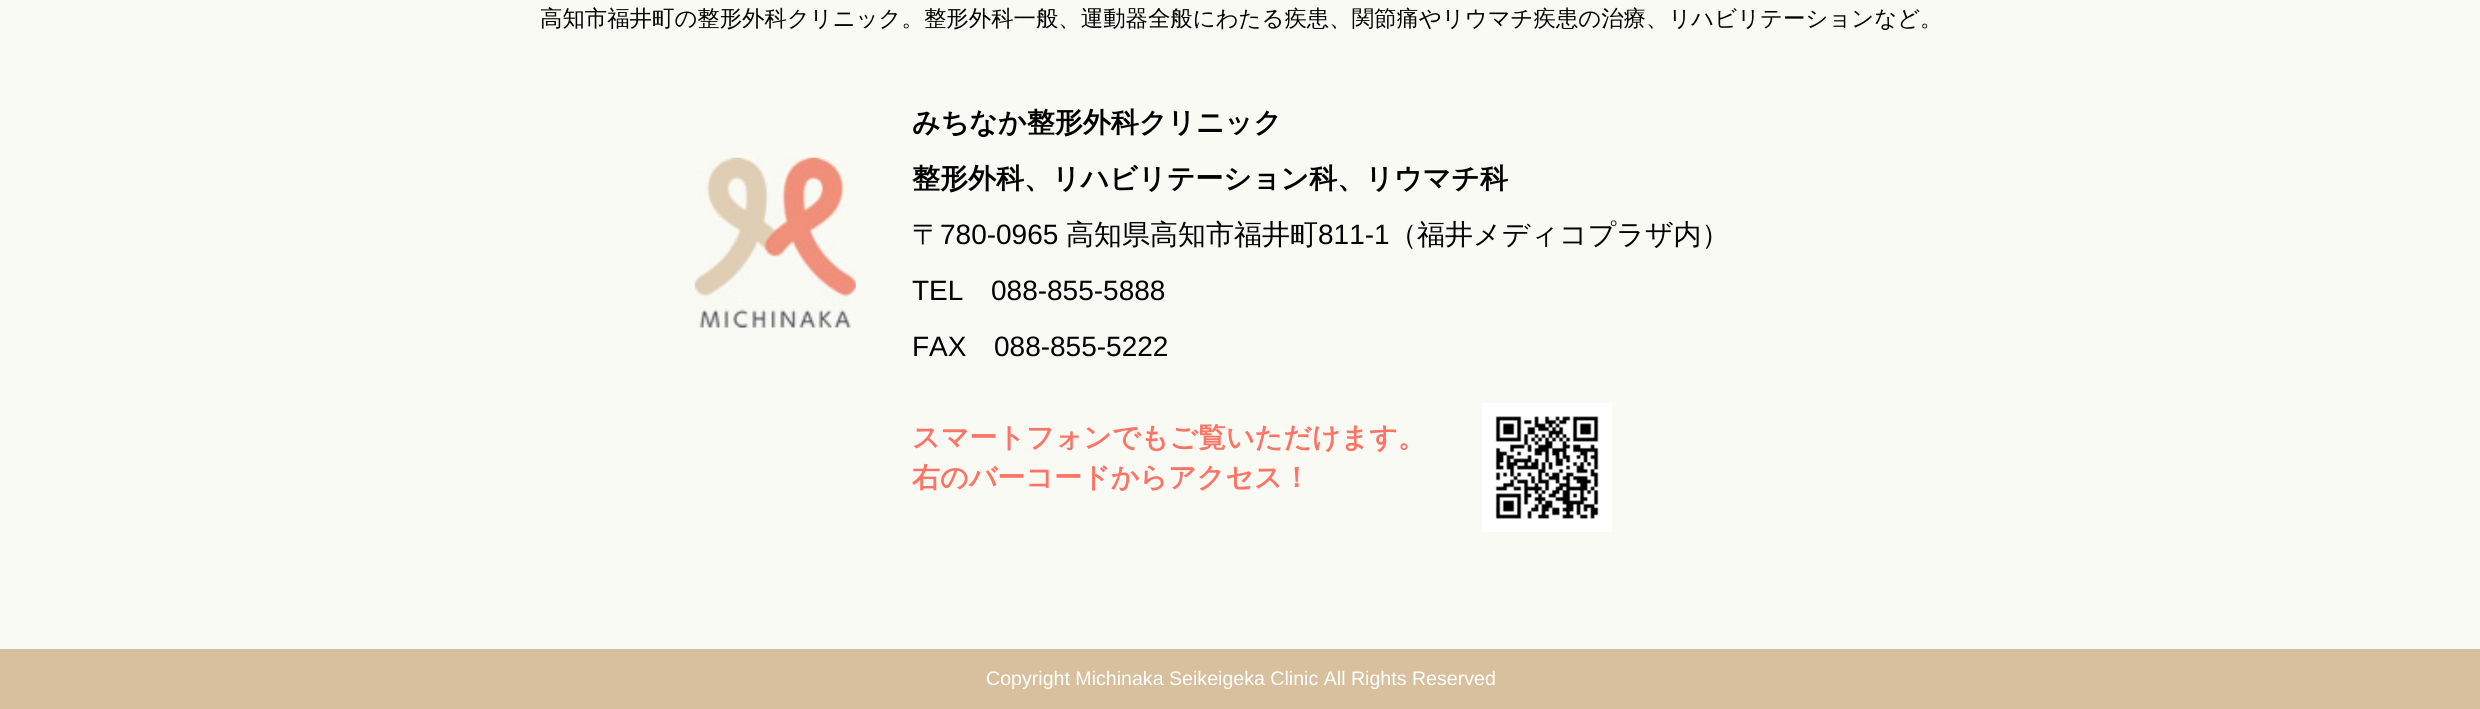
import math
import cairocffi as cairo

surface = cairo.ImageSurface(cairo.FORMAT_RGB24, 2480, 709)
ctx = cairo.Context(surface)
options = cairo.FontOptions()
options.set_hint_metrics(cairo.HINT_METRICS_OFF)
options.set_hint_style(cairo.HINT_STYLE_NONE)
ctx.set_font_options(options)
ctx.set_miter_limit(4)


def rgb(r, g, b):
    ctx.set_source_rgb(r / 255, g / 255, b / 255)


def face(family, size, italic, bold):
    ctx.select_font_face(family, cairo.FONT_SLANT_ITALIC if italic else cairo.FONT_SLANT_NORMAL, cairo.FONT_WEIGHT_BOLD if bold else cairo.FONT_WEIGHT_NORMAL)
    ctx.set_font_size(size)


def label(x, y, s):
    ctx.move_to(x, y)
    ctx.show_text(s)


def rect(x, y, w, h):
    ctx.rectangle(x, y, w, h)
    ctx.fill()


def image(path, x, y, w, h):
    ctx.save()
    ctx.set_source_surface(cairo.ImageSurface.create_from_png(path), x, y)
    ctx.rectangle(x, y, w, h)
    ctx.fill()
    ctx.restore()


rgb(250, 250, 245)
ctx.paint()
face('WenQuanYi Zen Hei Medium', 22.4, 0, 0)
rgb(0, 0, 0)
label(540, 26, '高知市福井町の整形外科クリニック。整形外科一般、運動器全般にわたる疾患、関節痛やリウマチ疾患の治療、リハビリテーションなど。')
image('image0.png', 694, 157, 162, 171)
face('WenQuanYi Zen Hei', 28, 0, 1)
label(912, 132, 'みちなか整形外科クリニック')
label(912, 188, '整形外科、リハビリテーション科、リウマチ科')
face('WenQuanYi Zen Hei Medium', 28, 0, 0)
label(912, 244, '〒')
face('Liberation Sans', 28, 0, 0)
label(940, 244, '780-0965')
face('WenQuanYi Zen Hei Medium', 28, 0, 0)
label(1066, 244, '高知県高知市福井町')
face('Liberation Sans', 28, 0, 0)
label(1318, 244, '811-1')
face('WenQuanYi Zen Hei Medium', 28, 0, 0)
label(1389, 244, '（福井メディコプラザ内）')
face('Liberation Sans', 28, 0, 0)
label(912, 300, 'TEL')
label(991, 300, '088-855-5888')
label(912, 356, 'FAX')
label(994, 356, '088-855-5222')
image('image1.png', 1482, 403, 130, 129)
face('WenQuanYi Zen Hei', 28, 0, 1)
rgb(251, 116, 101)
label(912, 447, 'スマートフォンでもご覧いただけます。')
label(912, 487, '右のバーコードからアクセス！')
rgb(216, 192, 158)
rect(0, 649, 2480, 60)
face('Liberation Sans', 19.6, 0, 0)
rgb(255, 255, 255)
label(986, 685, 'Copyright Michinaka Seikeigeka Clinic All Rights Reserved')
surface.write_to_png('render.png')
